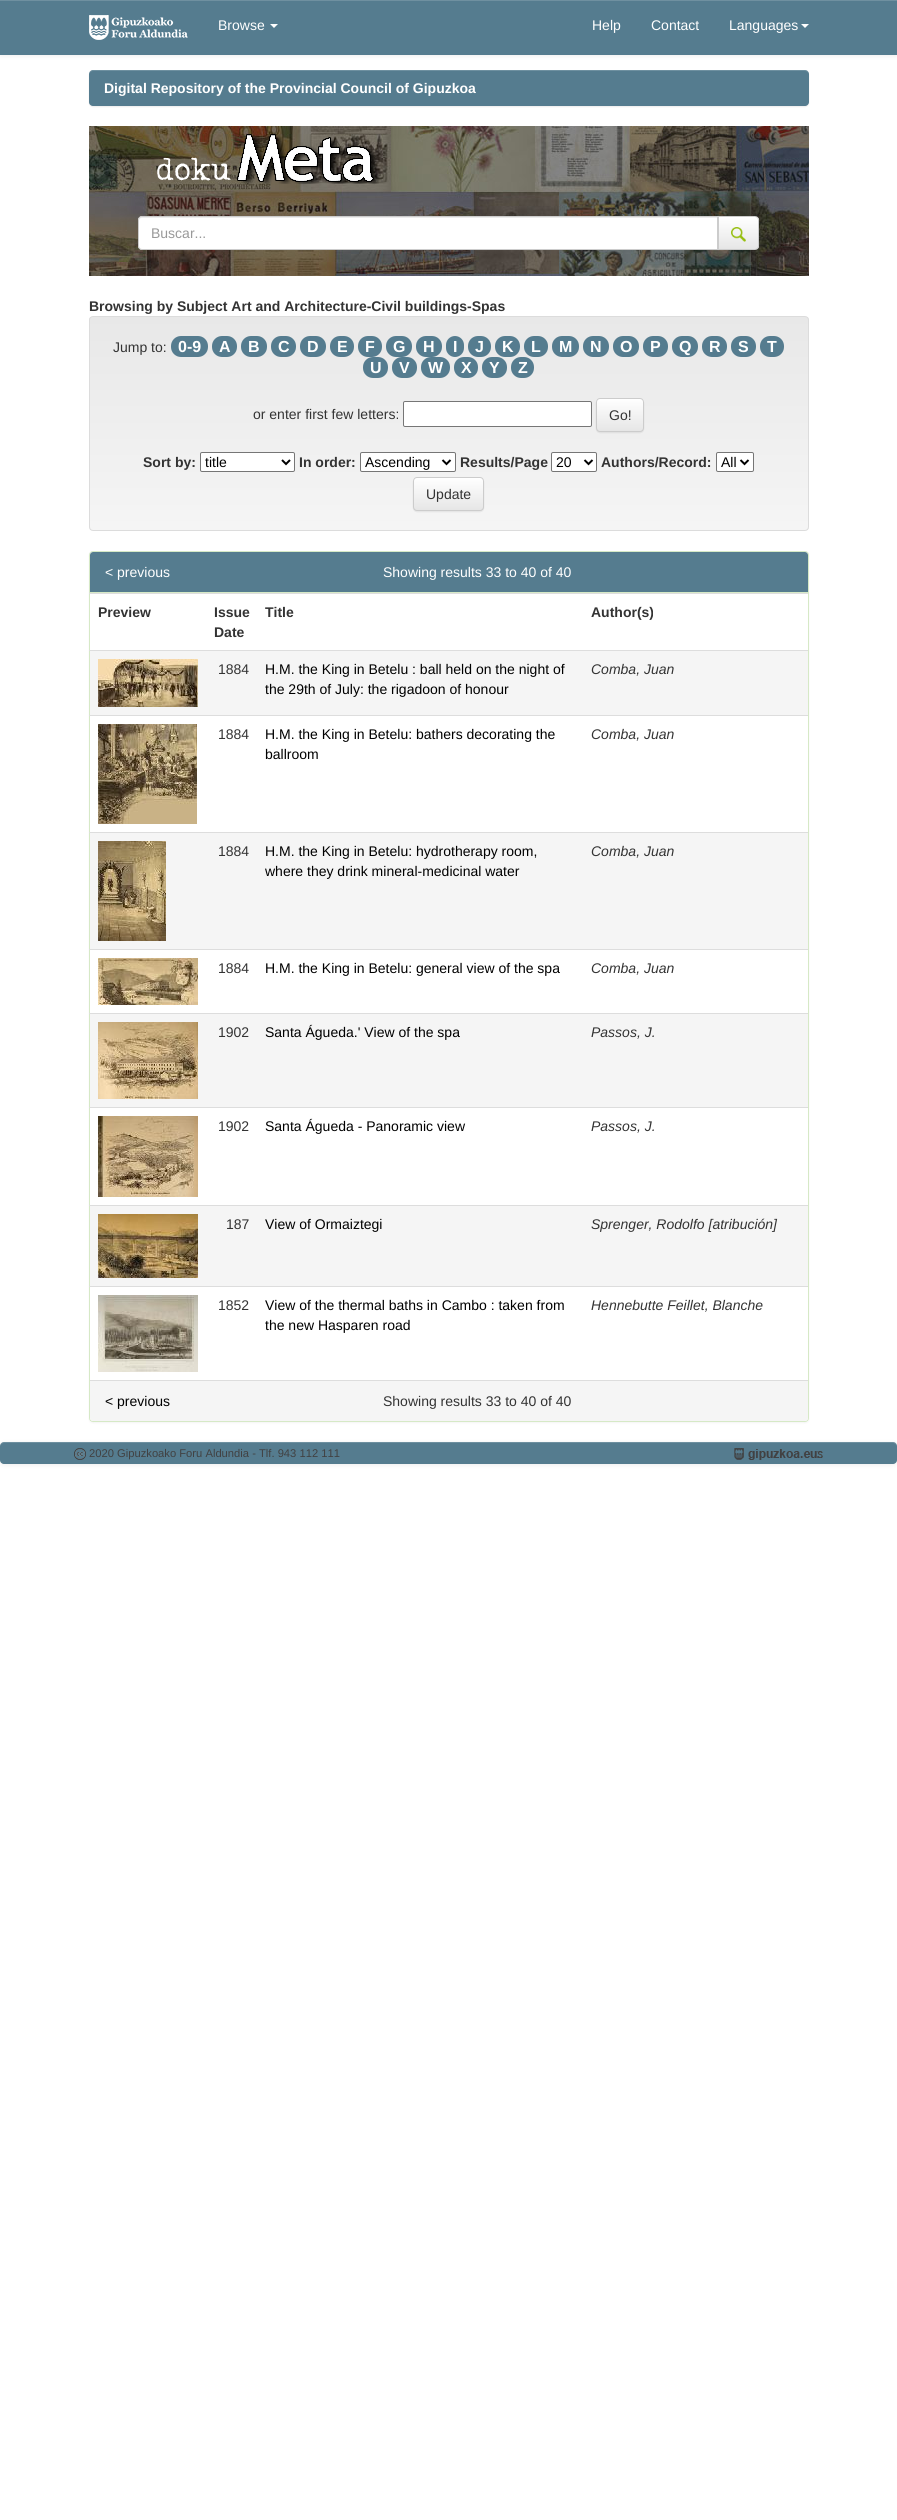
import math
import cairocffi as cairo

surface = cairo.ImageSurface(cairo.FORMAT_RGB24, 897, 2520)
ctx = cairo.Context(surface)
options = cairo.FontOptions()
options.set_hint_metrics(cairo.HINT_METRICS_OFF)
options.set_hint_style(cairo.HINT_STYLE_NONE)
ctx.set_font_options(options)
ctx.set_miter_limit(4)


def rgb(r, g, b):
    ctx.set_source_rgb(r / 255, g / 255, b / 255)


def face(family, size, italic, bold):
    ctx.select_font_face(family, cairo.FONT_SLANT_ITALIC if italic else cairo.FONT_SLANT_NORMAL, cairo.FONT_WEIGHT_BOLD if bold else cairo.FONT_WEIGHT_NORMAL)
    ctx.set_font_size(size)


def label(x, y, s):
    ctx.move_to(x, y)
    ctx.show_text(s)


def rect(x, y, w, h):
    ctx.rectangle(x, y, w, h)
    ctx.fill()


def rrect(x, y, w, h, r):
    ctx.new_sub_path()
    for i, (u, v) in enumerate([(x + w - r, y + h - r), (x + r, y + h - r), (x + r, y + r), (x + w - r, y + r)]):
        ctx.arc(u, v, r, i * math.pi / 2, (i + 1) * math.pi / 2)
    ctx.close_path()


def soft_shadow(x, y, w, h, r, blur, alpha):
    ctx.push_group_with_content(cairo.CONTENT_ALPHA)
    ctx.set_operator(cairo.OPERATOR_SOURCE)
    for i in range(15, -16, -2):
        e = blur * i / 6
        if min(w, h) + 2 * e > 0:
            ctx.set_source_rgba(0, 0, 0, alpha * math.erfc((i - 1) / 8.5) / 2)
            rrect(x - e, y - e, w + 2 * e, h + 2 * e, max(0, min(r + e + blur * .6, min(w, h) / 2 + e)))
            ctx.fill()
    ctx.mask(ctx.pop_group())


def image(path, x, y, w, h):
    ctx.save()
    ctx.set_source_surface(cairo.ImageSurface.create_from_png(path), x, y)
    ctx.rectangle(x, y, w, h)
    ctx.fill()
    ctx.restore()


rgb(255, 255, 255)
ctx.paint()
rgb(0, 0, 0)
soft_shadow(0, 1, 897, 55, 0, 2.5, 0.07)
rgb(85, 124, 143)
rect(0, 1, 897, 54)
rgb(111, 144, 160)
rect(0, 0, 897, 1)
image('image0.png', 89, 15, 99, 25)
face('Liberation Sans', 14, 0, 0)
rgb(255, 255, 255)
label(218, 30, 'Browse')
ctx.new_path()
ctx.move_to(270, 24)
ctx.line_to(278, 24)
ctx.line_to(274, 28)
ctx.close_path()
ctx.fill()
label(592, 30, 'Help')
label(651, 30, 'Contact')
label(729, 30, 'Languages')
ctx.new_path()
ctx.move_to(801, 24)
ctx.line_to(809, 24)
ctx.line_to(805, 28)
ctx.close_path()
ctx.fill()
rgb(0, 0, 0)
soft_shadow(89, 71, 720, 36, 4, 0.5, 0.07)
rgb(85, 124, 143)
rrect(89, 70, 720, 36, 4)
ctx.fill()
ctx.set_source_rgba(1, 1, 1, 0.15)
ctx.new_path()
ctx.move_to(93, 71)
ctx.line_to(805, 71)
ctx.curve_to(807, 71, 809, 73, 809, 75)
ctx.curve_to(809, 72, 808, 70, 805, 70)
ctx.line_to(93, 70)
ctx.line_to(90, 71)
ctx.line_to(89, 72)
ctx.line_to(89, 75)
ctx.curve_to(89, 73, 91, 71, 93, 71)
ctx.close_path()
ctx.fill()
face('Liberation Sans', 14, 0, 1)
rgb(255, 255, 255)
label(104, 93, 'Digital Repository of the Provincial Council of Gipuzkoa')
image('image1.png', 89, 126, 720, 150)
image('image2.png', 157, 134, 222, 50)
ctx.new_path()
ctx.move_to(142, 216)
ctx.line_to(718, 216)
ctx.line_to(718, 250)
ctx.line_to(142, 250)
ctx.curve_to(140, 250, 138, 248, 138, 246)
ctx.line_to(138, 220)
ctx.curve_to(138, 218, 140, 216, 142, 216)
ctx.close_path()
ctx.fill()
rgb(236, 236, 236)
ctx.new_path()
ctx.move_to(142, 218)
ctx.line_to(717, 218)
ctx.line_to(717, 217)
ctx.line_to(142, 217)
ctx.curve_to(140, 217, 139, 218, 139, 220)
ctx.line_to(139, 221)
ctx.curve_to(139, 219, 140, 218, 142, 218)
ctx.close_path()
ctx.fill()
ctx.new_path()
ctx.move_to(142, 216.5)
ctx.line_to(717.5, 216.5)
ctx.line_to(717.5, 249.5)
ctx.line_to(142, 249.5)
ctx.curve_to(140, 249.5, 138.5, 248, 138.5, 246)
ctx.line_to(138.5, 220)
ctx.curve_to(138.5, 218, 140, 216.5, 142, 216.5)
ctx.close_path()
rgb(204, 204, 204)
ctx.set_line_width(1)
ctx.stroke()
face('Liberation Sans', 14, 0, 0)
rgb(153, 153, 153)
label(151, 238, 'Buscar...')
ctx.save()
ctx.new_path()
ctx.move_to(718, 216)
ctx.line_to(755, 216)
ctx.curve_to(757, 216, 759, 218, 759, 220)
ctx.line_to(759, 246)
ctx.curve_to(759, 248, 757, 250, 755, 250)
ctx.line_to(718, 250)
ctx.close_path()
ctx.clip()
gradient = cairo.LinearGradient(739, 217, 739, 249)
gradient.add_color_stop_rgba(0, 1, 1, 1, 1)
gradient.add_color_stop_rgba(1, 0.902, 0.902, 0.902, 1)
ctx.set_source(gradient)
rect(719, 217, 40, 32)
ctx.restore()
ctx.new_path()
ctx.move_to(718.5, 216.5)
ctx.line_to(755, 216.5)
ctx.curve_to(757, 216.5, 758.5, 218, 758.5, 220)
ctx.line_to(758.5, 246)
ctx.curve_to(758.5, 248, 757, 249.5, 755, 249.5)
ctx.line_to(718.5, 249.5)
ctx.close_path()
rgb(204, 204, 204)
ctx.stroke()
image('image3.png', 731, 227, 15, 15)
face('Liberation Sans', 14, 0, 1)
rgb(51, 51, 51)
label(89, 311, 'Browsing by Subject Art and Architecture-Civil buildings-Spas')
ctx.save()
rrect(89, 316, 720, 215, 4)
ctx.clip()
gradient = cairo.LinearGradient(449, 317, 449, 530)
gradient.add_color_stop_rgba(0, 0.91, 0.91, 0.91, 1)
gradient.add_color_stop_rgba(1, 0.961, 0.961, 0.961, 1)
ctx.set_source(gradient)
rect(89, 317, 720, 213)
ctx.restore()
rrect(89.5, 316.5, 719, 214, 3.5)
rgb(220, 220, 220)
ctx.stroke()
face('Liberation Sans', 14, 0, 0)
rgb(51, 51, 51)
label(113, 352, 'Jump to:')
rgb(85, 124, 143)
rrect(171, 336, 37, 21, 10)
ctx.fill()
face('Liberation Sans', 16, 0, 1)
rgb(255, 255, 255)
label(178, 352, '0-9')
rgb(85, 124, 143)
rrect(212, 336, 25, 21, 10)
ctx.fill()
rgb(255, 255, 255)
label(219, 352, 'A')
rgb(85, 124, 143)
rrect(241, 336, 26, 21, 10)
ctx.fill()
rgb(255, 255, 255)
label(248, 352, 'B')
rgb(85, 124, 143)
rrect(271, 336, 25, 21, 10)
ctx.fill()
rgb(255, 255, 255)
label(278, 352, 'C')
rgb(85, 124, 143)
rrect(300, 336, 26, 21, 10)
ctx.fill()
rgb(255, 255, 255)
label(307, 352, 'D')
rgb(85, 124, 143)
rrect(330, 336, 24, 21, 10)
ctx.fill()
rgb(255, 255, 255)
label(337, 352, 'E')
rgb(85, 124, 143)
rrect(358, 336, 24, 21, 10)
ctx.fill()
rgb(255, 255, 255)
label(365, 352, 'F')
rgb(85, 124, 143)
rrect(386, 336, 26, 21, 10)
ctx.fill()
rgb(255, 255, 255)
label(393, 352, 'G')
rgb(85, 124, 143)
rrect(416, 336, 26, 21, 10)
ctx.fill()
rgb(255, 255, 255)
label(423, 352, 'H')
rgb(85, 124, 143)
rrect(446, 336, 18, 21, 9)
ctx.fill()
rgb(255, 255, 255)
label(453, 352, 'I')
rgb(85, 124, 143)
rrect(468, 336, 23, 21, 10)
ctx.fill()
rgb(255, 255, 255)
label(475, 352, 'J')
rgb(85, 124, 143)
rrect(495, 336, 25, 21, 10)
ctx.fill()
rgb(255, 255, 255)
label(502, 352, 'K')
rgb(85, 124, 143)
rrect(524, 336, 24, 21, 10)
ctx.fill()
rgb(255, 255, 255)
label(531, 352, 'L')
rgb(85, 124, 143)
rrect(552, 336, 27, 21, 10)
ctx.fill()
rgb(255, 255, 255)
label(559, 352, 'M')
rgb(85, 124, 143)
rrect(583, 336, 26, 21, 10)
ctx.fill()
rgb(255, 255, 255)
label(590, 352, 'N')
rgb(85, 124, 143)
rrect(613, 336, 26, 21, 10)
ctx.fill()
rgb(255, 255, 255)
label(620, 352, 'O')
rgb(85, 124, 143)
rrect(643, 336, 25, 21, 10)
ctx.fill()
rgb(255, 255, 255)
label(650, 352, 'P')
rgb(85, 124, 143)
rrect(672, 336, 26, 21, 10)
ctx.fill()
rgb(255, 255, 255)
label(679, 352, 'Q')
rgb(85, 124, 143)
rrect(702, 336, 25, 21, 10)
ctx.fill()
rgb(255, 255, 255)
label(709, 352, 'R')
rgb(85, 124, 143)
rrect(731, 336, 25, 21, 10)
ctx.fill()
rgb(255, 255, 255)
label(738, 352, 'S')
rgb(85, 124, 143)
rrect(760, 336, 24, 21, 10)
ctx.fill()
rgb(255, 255, 255)
label(767, 352, 'T')
rgb(85, 124, 143)
rrect(363, 357, 25, 21, 10)
ctx.fill()
rgb(255, 255, 255)
label(370, 373, 'U')
rgb(85, 124, 143)
rrect(392, 357, 25, 21, 10)
ctx.fill()
rgb(255, 255, 255)
label(399, 373, 'V')
rgb(85, 124, 143)
rrect(421, 357, 29, 21, 10)
ctx.fill()
rgb(255, 255, 255)
label(428, 373, 'W')
rgb(85, 124, 143)
rrect(454, 357, 24, 21, 10)
ctx.fill()
rgb(255, 255, 255)
label(461, 373, 'X')
rgb(85, 124, 143)
rrect(482, 357, 25, 21, 10)
ctx.fill()
rgb(255, 255, 255)
label(489, 373, 'Y')
rgb(85, 124, 143)
rrect(511, 357, 23, 21, 10)
ctx.fill()
rgb(255, 255, 255)
label(518, 373, 'Z')
face('Liberation Sans', 14, 0, 0)
rgb(51, 51, 51)
label(253, 419, 'or enter first few letters:')
rgb(255, 255, 255)
rrect(403.5, 401.5, 188, 25, 1.5)
ctx.fill_preserve()
rgb(118, 118, 118)
ctx.stroke()
rgb(0, 0, 0)
soft_shadow(596, 399, 48, 34, 4, 0.5, 0.07)
ctx.save()
rrect(596, 398, 48, 34, 4)
ctx.clip()
gradient = cairo.LinearGradient(620, 399, 620, 431)
gradient.add_color_stop_rgba(0, 1, 1, 1, 1)
gradient.add_color_stop_rgba(1, 0.902, 0.902, 0.902, 1)
ctx.set_source(gradient)
rect(596, 399, 48, 32)
ctx.restore()
rrect(596.5, 398.5, 47, 33, 3.5)
rgb(204, 204, 204)
ctx.stroke()
rgb(51, 51, 51)
label(609, 420, 'Go!')
face('Liberation Sans', 14, 0, 1)
label(143, 467, 'Sort by:')
rgb(255, 255, 255)
rrect(200.5, 452.5, 94, 19, 1.5)
ctx.fill_preserve()
rgb(118, 118, 118)
ctx.stroke()
ctx.new_path()
ctx.move_to(282, 460)
ctx.line_to(286, 464)
ctx.line_to(290, 460)
rgb(0, 0, 0)
ctx.set_line_width(2)
ctx.stroke()
face('Liberation Sans', 14, 0, 0)
label(205, 467, 'title')
face('Liberation Sans', 14, 0, 1)
rgb(51, 51, 51)
label(299, 467, 'In order:')
rgb(255, 255, 255)
rrect(360.5, 452.5, 95, 19, 1.5)
ctx.fill_preserve()
rgb(118, 118, 118)
ctx.set_line_width(1)
ctx.stroke()
ctx.new_path()
ctx.move_to(442.5, 460)
ctx.line_to(446.5, 464)
ctx.line_to(450.5, 460)
rgb(0, 0, 0)
ctx.set_line_width(2)
ctx.stroke()
face('Liberation Sans', 14, 0, 0)
label(365, 467, 'Ascending')
face('Liberation Sans', 14, 0, 1)
rgb(51, 51, 51)
label(460, 467, 'Results/Page')
rgb(255, 255, 255)
rrect(551.5, 452.5, 45, 19, 1.5)
ctx.fill_preserve()
rgb(118, 118, 118)
ctx.set_line_width(1)
ctx.stroke()
ctx.new_path()
ctx.move_to(584.5, 460)
ctx.line_to(588.5, 464)
ctx.line_to(592.5, 460)
rgb(0, 0, 0)
ctx.set_line_width(2)
ctx.stroke()
face('Liberation Sans', 14, 0, 0)
label(556, 467, '20')
face('Liberation Sans', 14, 0, 1)
rgb(51, 51, 51)
label(601, 467, 'Authors/Record:')
rgb(255, 255, 255)
rrect(716.5, 452.5, 37, 19, 1.5)
ctx.fill_preserve()
rgb(118, 118, 118)
ctx.set_line_width(1)
ctx.stroke()
ctx.new_path()
ctx.move_to(740.5, 460)
ctx.line_to(744.5, 464)
ctx.line_to(748.5, 460)
rgb(0, 0, 0)
ctx.set_line_width(2)
ctx.stroke()
face('Liberation Sans', 14, 0, 0)
label(721, 467, 'All')
rgb(0, 0, 0)
soft_shadow(413, 478, 71, 34, 4, 0.5, 0.07)
ctx.save()
rrect(413, 477, 71, 34, 4)
ctx.clip()
gradient = cairo.LinearGradient(449, 478, 449, 510)
gradient.add_color_stop_rgba(0, 1, 1, 1, 1)
gradient.add_color_stop_rgba(1, 0.902, 0.902, 0.902, 1)
ctx.set_source(gradient)
rect(413, 478, 71, 32)
ctx.restore()
rrect(413.5, 477.5, 70, 33, 3.5)
rgb(204, 204, 204)
ctx.set_line_width(1)
ctx.stroke()
rgb(51, 51, 51)
label(426, 499, 'Update')
rgb(0, 0, 0)
soft_shadow(89, 552, 720, 871, 4, 1, 0.05)
rgb(255, 255, 255)
rrect(89.5, 551.5, 719, 870, 3.5)
ctx.fill_preserve()
rgb(214, 233, 198)
ctx.stroke()
rgb(85, 124, 143)
ctx.new_path()
ctx.move_to(93, 552)
ctx.line_to(805, 552)
ctx.curve_to(806.5, 552, 808, 553.5, 808, 555)
ctx.line_to(808, 593)
ctx.line_to(90, 593)
ctx.line_to(90, 555)
ctx.curve_to(90, 553.5, 91.5, 552, 93, 552)
ctx.close_path()
ctx.fill()
rgb(214, 233, 198)
rect(90, 592, 718, 1)
rgb(255, 255, 255)
label(105, 577, '< previous')
label(383, 577, 'Showing results 33 to 40 of 40')
face('Liberation Sans', 14, 0, 1)
rgb(51, 51, 51)
label(98, 617, 'Preview')
label(214, 617, 'Issue')
label(214, 637, 'Date')
label(265, 617, 'Title')
rgb(221, 221, 221)
rect(89, 593, 719, 1)
rgb(51, 51, 51)
label(591, 617, 'Author(s)')
rgb(245, 245, 245)
rect(90, 651, 718, 64)
image('image4.png', 98, 659, 100, 48)
face('Liberation Sans', 14, 0, 0)
rgb(51, 51, 51)
label(218, 674, '1884')
rgb(0, 0, 0)
label(265, 674, 'H.M. the King in Betelu : ball held on the night of')
label(265, 694, 'the 29th of July: the rigadoon of honour')
rgb(221, 221, 221)
rect(89, 650, 719, 1)
face('Liberation Sans', 14, 1, 0)
rgb(51, 51, 51)
label(591, 674, 'Comba, Juan')
image('image5.png', 98, 724, 99, 100)
face('Liberation Sans', 14, 0, 0)
label(218, 739, '1884')
rgb(0, 0, 0)
label(265, 739, 'H.M. the King in Betelu: bathers decorating the')
label(265, 759, 'ballroom')
rgb(221, 221, 221)
rect(89, 715, 719, 1)
face('Liberation Sans', 14, 1, 0)
rgb(51, 51, 51)
label(591, 739, 'Comba, Juan')
rgb(245, 245, 245)
rect(90, 833, 718, 116)
image('image6.png', 98, 841, 68, 100)
face('Liberation Sans', 14, 0, 0)
rgb(51, 51, 51)
label(218, 856, '1884')
rgb(0, 0, 0)
label(265, 856, 'H.M. the King in Betelu: hydrotherapy room,')
label(265, 876, 'where they drink mineral-medicinal water')
rgb(221, 221, 221)
rect(89, 832, 719, 1)
face('Liberation Sans', 14, 1, 0)
rgb(51, 51, 51)
label(591, 856, 'Comba, Juan')
image('image7.png', 98, 958, 100, 47)
face('Liberation Sans', 14, 0, 0)
label(218, 973, '1884')
rgb(0, 0, 0)
label(265, 973, 'H.M. the King in Betelu: general view of the spa')
rgb(221, 221, 221)
rect(89, 949, 719, 1)
face('Liberation Sans', 14, 1, 0)
rgb(51, 51, 51)
label(591, 973, 'Comba, Juan')
rgb(245, 245, 245)
rect(90, 1014, 718, 93)
image('image8.png', 98, 1022, 100, 77)
face('Liberation Sans', 14, 0, 0)
rgb(51, 51, 51)
label(218, 1037, '1902')
rgb(0, 0, 0)
label(265, 1037, 'Santa Águeda.\' View of the spa')
rgb(221, 221, 221)
rect(89, 1013, 719, 1)
face('Liberation Sans', 14, 1, 0)
rgb(51, 51, 51)
label(591, 1037, 'Passos, J.')
image('image9.png', 98, 1116, 100, 81)
face('Liberation Sans', 14, 0, 0)
label(218, 1131, '1902')
rgb(0, 0, 0)
label(265, 1131, 'Santa Águeda - Panoramic view')
rgb(221, 221, 221)
rect(89, 1107, 719, 1)
face('Liberation Sans', 14, 1, 0)
rgb(51, 51, 51)
label(591, 1131, 'Passos, J.')
rgb(245, 245, 245)
rect(90, 1206, 718, 80)
image('image10.png', 98, 1214, 100, 64)
face('Liberation Sans', 14, 0, 0)
rgb(51, 51, 51)
label(226, 1229, '187')
rgb(0, 0, 0)
label(265, 1229, 'View of Ormaiztegi')
rgb(221, 221, 221)
rect(89, 1205, 719, 1)
face('Liberation Sans', 14, 1, 0)
rgb(51, 51, 51)
label(591, 1229, 'Sprenger, Rodolfo [atribución]')
image('image11.png', 98, 1295, 100, 77)
face('Liberation Sans', 14, 0, 0)
label(218, 1310, '1852')
rgb(0, 0, 0)
label(265, 1310, 'View of the thermal baths in Cambo : taken from')
label(265, 1330, 'the new Hasparen road')
rgb(221, 221, 221)
rect(89, 1286, 719, 1)
face('Liberation Sans', 14, 1, 0)
rgb(51, 51, 51)
label(591, 1310, 'Hennebutte Feillet, Blanche')
rgb(245, 245, 245)
ctx.new_path()
ctx.move_to(90, 1380)
ctx.line_to(808, 1380)
ctx.line_to(808, 1418)
ctx.curve_to(808, 1419.5, 806.5, 1421, 805, 1421)
ctx.line_to(93, 1421)
ctx.curve_to(91.5, 1421, 90, 1419.5, 90, 1418)
ctx.close_path()
ctx.fill()
rgb(221, 221, 221)
rect(90, 1380, 718, 1)
face('Liberation Sans', 14, 0, 0)
rgb(0, 0, 0)
label(105, 1406, '< previous')
rgb(51, 51, 51)
label(383, 1406, 'Showing results 33 to 40 of 40')
rgb(0, 0, 0)
soft_shadow(0, 1443, 897, 22, 4, 2.5, 0.07)
rgb(85, 124, 143)
rrect(0, 1442, 897, 22, 4)
ctx.fill()
ctx.set_source_rgba(1, 1, 1, 0.15)
ctx.new_path()
ctx.move_to(4, 1443)
ctx.line_to(893, 1443)
ctx.curve_to(895, 1443, 897, 1445, 897, 1447)
ctx.curve_to(897, 1444, 896, 1442, 893, 1442)
ctx.line_to(4, 1442)
ctx.curve_to(1, 1442, 0, 1444, 0, 1447)
ctx.curve_to(0, 1445, 2, 1443, 4, 1443)
ctx.close_path()
ctx.fill()
image('image12.png', 74, 1448, 12, 12)
face('Liberation Sans', 11.2, 0, 0)
rgb(65, 65, 66)
label(89, 1457, '2020 Gipuzkoako Foru Aldundia - Tlf. 943 112 111')
image('image13.png', 734, 1448, 89, 12)
surface.write_to_png('render.png')
